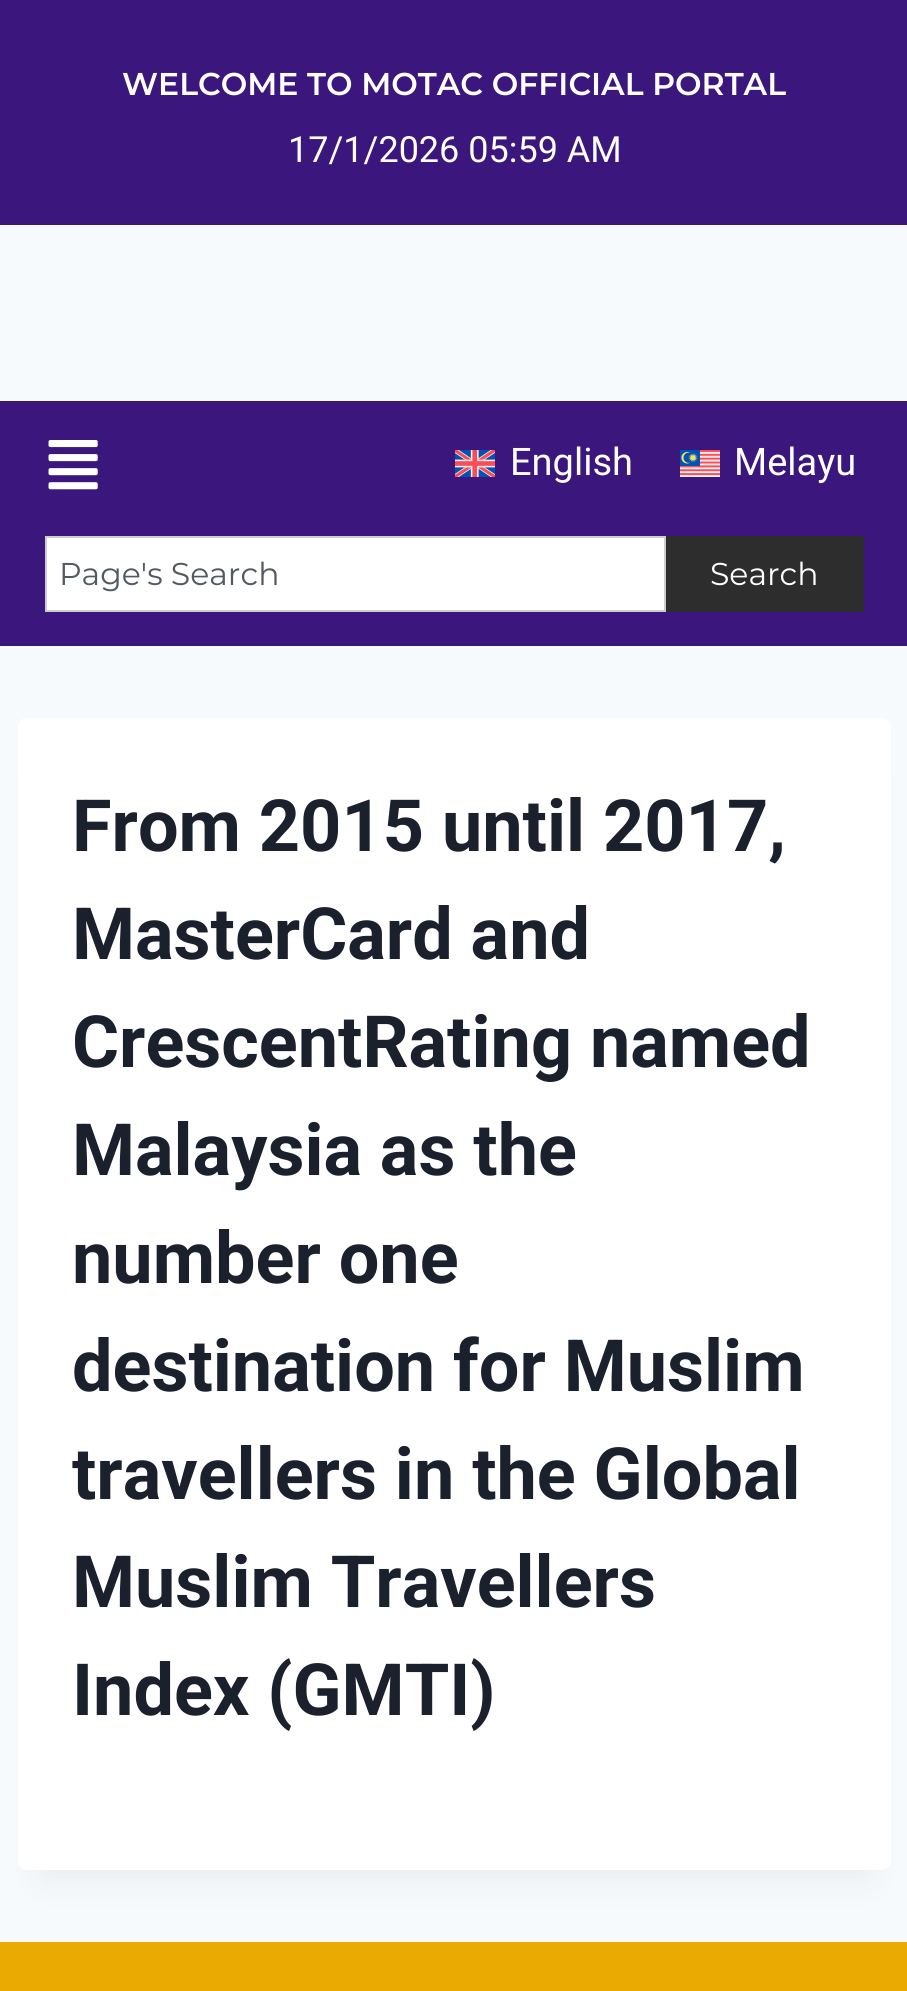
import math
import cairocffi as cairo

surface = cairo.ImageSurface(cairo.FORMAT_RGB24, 907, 1991)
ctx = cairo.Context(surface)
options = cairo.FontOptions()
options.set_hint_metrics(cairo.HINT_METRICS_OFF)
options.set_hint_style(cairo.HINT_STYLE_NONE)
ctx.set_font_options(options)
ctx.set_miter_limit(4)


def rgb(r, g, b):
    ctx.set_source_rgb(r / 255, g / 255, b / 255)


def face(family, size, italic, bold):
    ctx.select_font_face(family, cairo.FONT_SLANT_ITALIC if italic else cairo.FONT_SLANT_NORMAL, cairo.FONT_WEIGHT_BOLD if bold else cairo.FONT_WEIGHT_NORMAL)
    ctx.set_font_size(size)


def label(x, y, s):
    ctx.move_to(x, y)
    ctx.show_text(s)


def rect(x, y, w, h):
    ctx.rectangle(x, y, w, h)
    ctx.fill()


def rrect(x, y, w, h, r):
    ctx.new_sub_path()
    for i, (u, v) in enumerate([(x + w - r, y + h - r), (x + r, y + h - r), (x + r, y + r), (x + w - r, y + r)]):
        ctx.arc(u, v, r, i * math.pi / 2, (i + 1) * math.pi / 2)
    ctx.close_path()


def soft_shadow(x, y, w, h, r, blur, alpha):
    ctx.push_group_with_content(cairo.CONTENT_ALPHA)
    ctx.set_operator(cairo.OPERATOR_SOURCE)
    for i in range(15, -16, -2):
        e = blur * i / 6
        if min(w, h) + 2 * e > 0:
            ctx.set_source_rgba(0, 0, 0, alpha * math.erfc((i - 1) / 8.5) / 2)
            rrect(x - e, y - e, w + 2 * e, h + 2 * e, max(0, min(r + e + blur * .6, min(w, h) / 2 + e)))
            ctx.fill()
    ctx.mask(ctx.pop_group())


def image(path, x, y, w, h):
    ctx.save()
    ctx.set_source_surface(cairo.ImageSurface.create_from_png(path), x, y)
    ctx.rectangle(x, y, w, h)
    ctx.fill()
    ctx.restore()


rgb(247, 250, 252)
ctx.paint()
rgb(59, 23, 125)
rect(0, 0, 907, 225)
face('Montserrat SemiBold', 31.5, 0, 0)
rgb(255, 255, 255)
label(122, 95, 'WELCOME TO MOTAC OFFICIAL PORTAL')
face('Roboto', 36, 0, 0)
label(288, 162, '17/1/2026 05:59 AM')
rgb(59, 23, 125)
rect(0, 401, 907, 245)
image('image0.png', 48, 440, 50, 50)
image('image1.png', 455, 450, 40, 27)
face('Roboto', 38, 0, 0)
rgb(255, 255, 255)
label(510, 475, 'English')
image('image2.png', 680, 450, 40, 27)
label(734, 475, 'Melayu')
ctx.rectangle(46, 537, 619, 74)
ctx.fill_preserve()
rgb(205, 205, 205)
ctx.stroke()
face('Montserrat', 31.5, 0, 0)
rgb(81, 89, 98)
label(59, 585, 'Page\'s Search')
rgb(45, 45, 45)
rect(666, 536, 198, 76)
rgb(255, 255, 255)
label(710, 585, 'Search')
rgb(0, 0, 0)
soft_shadow(41, 774, 828, 1107, 0, 17, 0.05)
rgb(255, 255, 255)
rrect(18, 718, 873, 1152, 9)
ctx.fill()
face('Roboto', 72, 0, 1)
rgb(26, 32, 44)
label(72, 851, 'From 2015 until 2017,')
label(72, 959, 'MasterCard and')
label(72, 1067, 'CrescentRating named')
label(72, 1175, 'Malaysia as the')
label(72, 1283, 'number one')
label(72, 1391, 'destination for Muslim')
label(72, 1499, 'travellers in the Global')
label(72, 1607, 'Muslim Travellers')
label(72, 1715, 'Index (GMTI)')
rgb(234, 170, 1)
rect(0, 1942, 907, 49)
surface.write_to_png('render.png')
